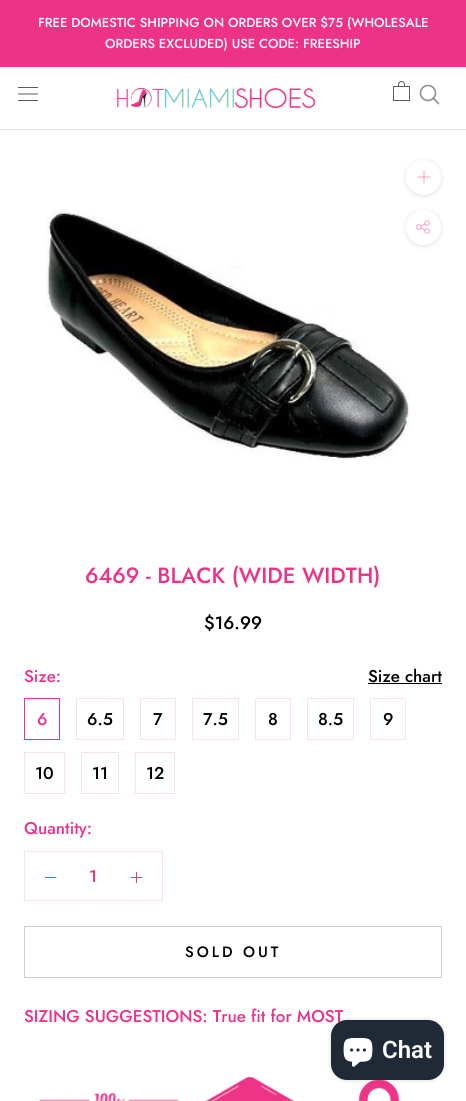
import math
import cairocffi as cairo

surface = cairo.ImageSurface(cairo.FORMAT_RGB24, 466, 1101)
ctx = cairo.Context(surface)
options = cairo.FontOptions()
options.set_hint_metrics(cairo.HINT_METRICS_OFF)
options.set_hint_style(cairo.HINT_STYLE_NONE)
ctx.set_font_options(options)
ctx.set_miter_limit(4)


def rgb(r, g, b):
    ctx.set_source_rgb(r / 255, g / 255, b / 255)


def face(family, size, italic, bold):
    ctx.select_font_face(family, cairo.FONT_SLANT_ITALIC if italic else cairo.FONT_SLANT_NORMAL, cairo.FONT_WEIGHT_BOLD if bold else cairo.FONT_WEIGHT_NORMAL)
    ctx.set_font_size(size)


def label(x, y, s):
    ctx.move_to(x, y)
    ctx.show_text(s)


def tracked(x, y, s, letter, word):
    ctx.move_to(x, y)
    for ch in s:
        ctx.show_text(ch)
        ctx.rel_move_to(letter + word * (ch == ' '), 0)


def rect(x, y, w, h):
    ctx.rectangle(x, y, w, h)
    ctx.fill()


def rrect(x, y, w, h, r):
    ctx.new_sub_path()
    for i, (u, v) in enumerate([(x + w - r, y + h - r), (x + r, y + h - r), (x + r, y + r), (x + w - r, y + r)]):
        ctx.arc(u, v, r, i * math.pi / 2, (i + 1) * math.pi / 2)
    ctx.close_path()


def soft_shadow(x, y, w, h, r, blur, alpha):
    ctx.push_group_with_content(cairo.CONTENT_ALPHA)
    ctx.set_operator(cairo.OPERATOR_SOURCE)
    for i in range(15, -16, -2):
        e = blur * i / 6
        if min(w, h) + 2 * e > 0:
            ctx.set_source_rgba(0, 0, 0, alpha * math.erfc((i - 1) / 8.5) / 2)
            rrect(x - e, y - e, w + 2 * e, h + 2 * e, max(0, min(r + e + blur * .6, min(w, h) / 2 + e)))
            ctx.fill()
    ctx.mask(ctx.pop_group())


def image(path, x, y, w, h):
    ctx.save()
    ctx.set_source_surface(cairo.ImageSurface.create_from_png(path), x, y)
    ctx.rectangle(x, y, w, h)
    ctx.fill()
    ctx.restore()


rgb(255, 255, 255)
ctx.paint()
rgb(238, 50, 136)
rect(0, 0, 466, 67)
face('Jost Medium', 13, 0, 0)
rgb(255, 255, 255)
label(38, 27, 'FREE DOMESTIC SHIPPING ON ORDERS OVER $75 (WHOLESALE')
label(105, 48, 'ORDERS EXCLUDED) USE CODE: FREESHIP')
rgb(231, 231, 231)
rect(0, 129, 466, 1)
image('image0.png', 18, 87, 20, 14)
image('image1.png', 117, 87, 199, 22)
image('image2.png', 393, 81, 17, 20)
ctx.arc(428, 93, 7.5, 0, 2 * math.pi)
rgb(147, 147, 147)
ctx.set_line_width(1.7)
ctx.stroke()
ctx.new_path()
ctx.move_to(438.5, 103.5)
ctx.line_to(433, 98)
ctx.set_line_cap(cairo.LINE_CAP_ROUND)
ctx.stroke()
image('image3.png', 45, 209, 365, 252)
rgb(54, 54, 54)
soft_shadow(406, 161, 35, 35, 17.5, 2.5, 0.15)
rgb(255, 255, 255)
ctx.arc(423.5, 177.5, 17.5, 0, 2 * math.pi)
ctx.fill()
ctx.new_path()
ctx.move_to(424, 171)
ctx.line_to(424, 183)
rgb(249, 153, 197)
ctx.set_line_width(0.9)
ctx.set_line_cap(cairo.LINE_CAP_SQUARE)
ctx.stroke()
ctx.new_path()
ctx.move_to(418, 177)
ctx.line_to(430, 177)
ctx.set_source_rgba(0.953, 0.196, 0.541, 0.5)
ctx.stroke()
rgb(54, 54, 54)
soft_shadow(406, 211, 35, 35, 17.5, 2.5, 0.15)
rgb(255, 255, 255)
ctx.arc(423.5, 227.5, 17.5, 0, 2 * math.pi)
ctx.fill()
image('image4.png', 416, 220, 14, 14)
ctx.save()
rrect(406, 210, 35, 35, 17.5)
ctx.clip()
ctx.new_path()
ctx.move_to(429.5, 242)
ctx.line_to(417.5, 254)
ctx.move_to(429.5, 254)
ctx.line_to(417.5, 242)
ctx.set_line_cap(cairo.LINE_CAP_BUTT)
ctx.stroke()
ctx.restore()
face('Jost Medium', 22, 0, 0)
rgb(238, 50, 136)
label(85, 583, '6469 - BLACK (WIDE WIDTH)')
face('Jost Medium', 18, 0, 0)
rgb(0, 0, 0)
label(204, 629, '$16.99')
face('Jost Medium', 17, 0, 0)
rgb(238, 50, 136)
label(24, 682, 'Size:')
rgb(0, 0, 0)
label(368, 682, 'Size chart')
rect(368, 683, 74, 1)
ctx.rectangle(24.5, 698.5, 35, 41)
rgb(238, 50, 136)
ctx.set_line_width(1)
ctx.set_line_cap(cairo.LINE_CAP_BUTT)
ctx.stroke()
label(37, 725, '6')
ctx.rectangle(76.5, 698.5, 47, 41)
rgb(252, 224, 237)
ctx.stroke()
rgb(0, 0, 0)
label(87, 725, '6.5')
ctx.rectangle(140.5, 698.5, 35, 41)
rgb(252, 224, 237)
ctx.stroke()
rgb(0, 0, 0)
label(153, 725, '7')
ctx.rectangle(192.5, 698.5, 46, 41)
rgb(252, 224, 237)
ctx.stroke()
rgb(0, 0, 0)
label(203, 725, '7.5')
ctx.rectangle(255.5, 698.5, 35, 41)
rgb(252, 224, 237)
ctx.stroke()
rgb(0, 0, 0)
label(268, 725, '8')
ctx.rectangle(307.5, 698.5, 46, 41)
rgb(252, 224, 237)
ctx.stroke()
rgb(0, 0, 0)
label(318, 725, '8.5')
ctx.rectangle(370.5, 698.5, 35, 41)
rgb(252, 224, 237)
ctx.stroke()
rgb(0, 0, 0)
label(383, 725, '9')
ctx.rectangle(24.5, 752.5, 40, 41)
rgb(252, 224, 237)
ctx.stroke()
rgb(0, 0, 0)
label(35, 779, '10')
ctx.rectangle(81.5, 752.5, 37, 41)
rgb(252, 224, 237)
ctx.stroke()
rgb(0, 0, 0)
label(92, 779, '11')
ctx.rectangle(135.5, 752.5, 39, 41)
rgb(252, 224, 237)
ctx.stroke()
rgb(0, 0, 0)
label(146, 779, '12')
rgb(238, 50, 136)
label(24, 834, 'Quantity:')
ctx.rectangle(24.5, 851.5, 138, 49)
rgb(252, 224, 237)
ctx.stroke()
rgb(238, 50, 136)
rect(45, 877, 11, 1)
label(89, 882, '1')
rect(136, 872, 1, 11)
rect(131, 877, 11, 1)
ctx.rectangle(24.5, 926.5, 417, 51)
rgb(204, 204, 204)
ctx.stroke()
face('Jost Medium', 15, 0, 0)
rgb(0, 0, 0)
tracked(185, 957, 'SOLD OUT', 3, 0)
face('Jost Medium', 17, 0, 0)
rgb(238, 50, 136)
label(24, 1022, 'SIZING SUGGESTIONS: True fit for MOST')
image('image5.png', 39, 1076, 361, 25)
rgb(0, 0, 0)
soft_shadow(331, 1020, 113, 60, 16, 2.5, 0.15)
rgb(32, 42, 54)
rrect(331, 1020, 113, 60, 16)
ctx.fill()
image('image6.png', 343, 1038, 30, 29)
face('Roboto SemiBold', 24, 0, 0)
rgb(255, 255, 255)
label(382, 1058, 'Chat')
surface.write_to_png('render.png')
